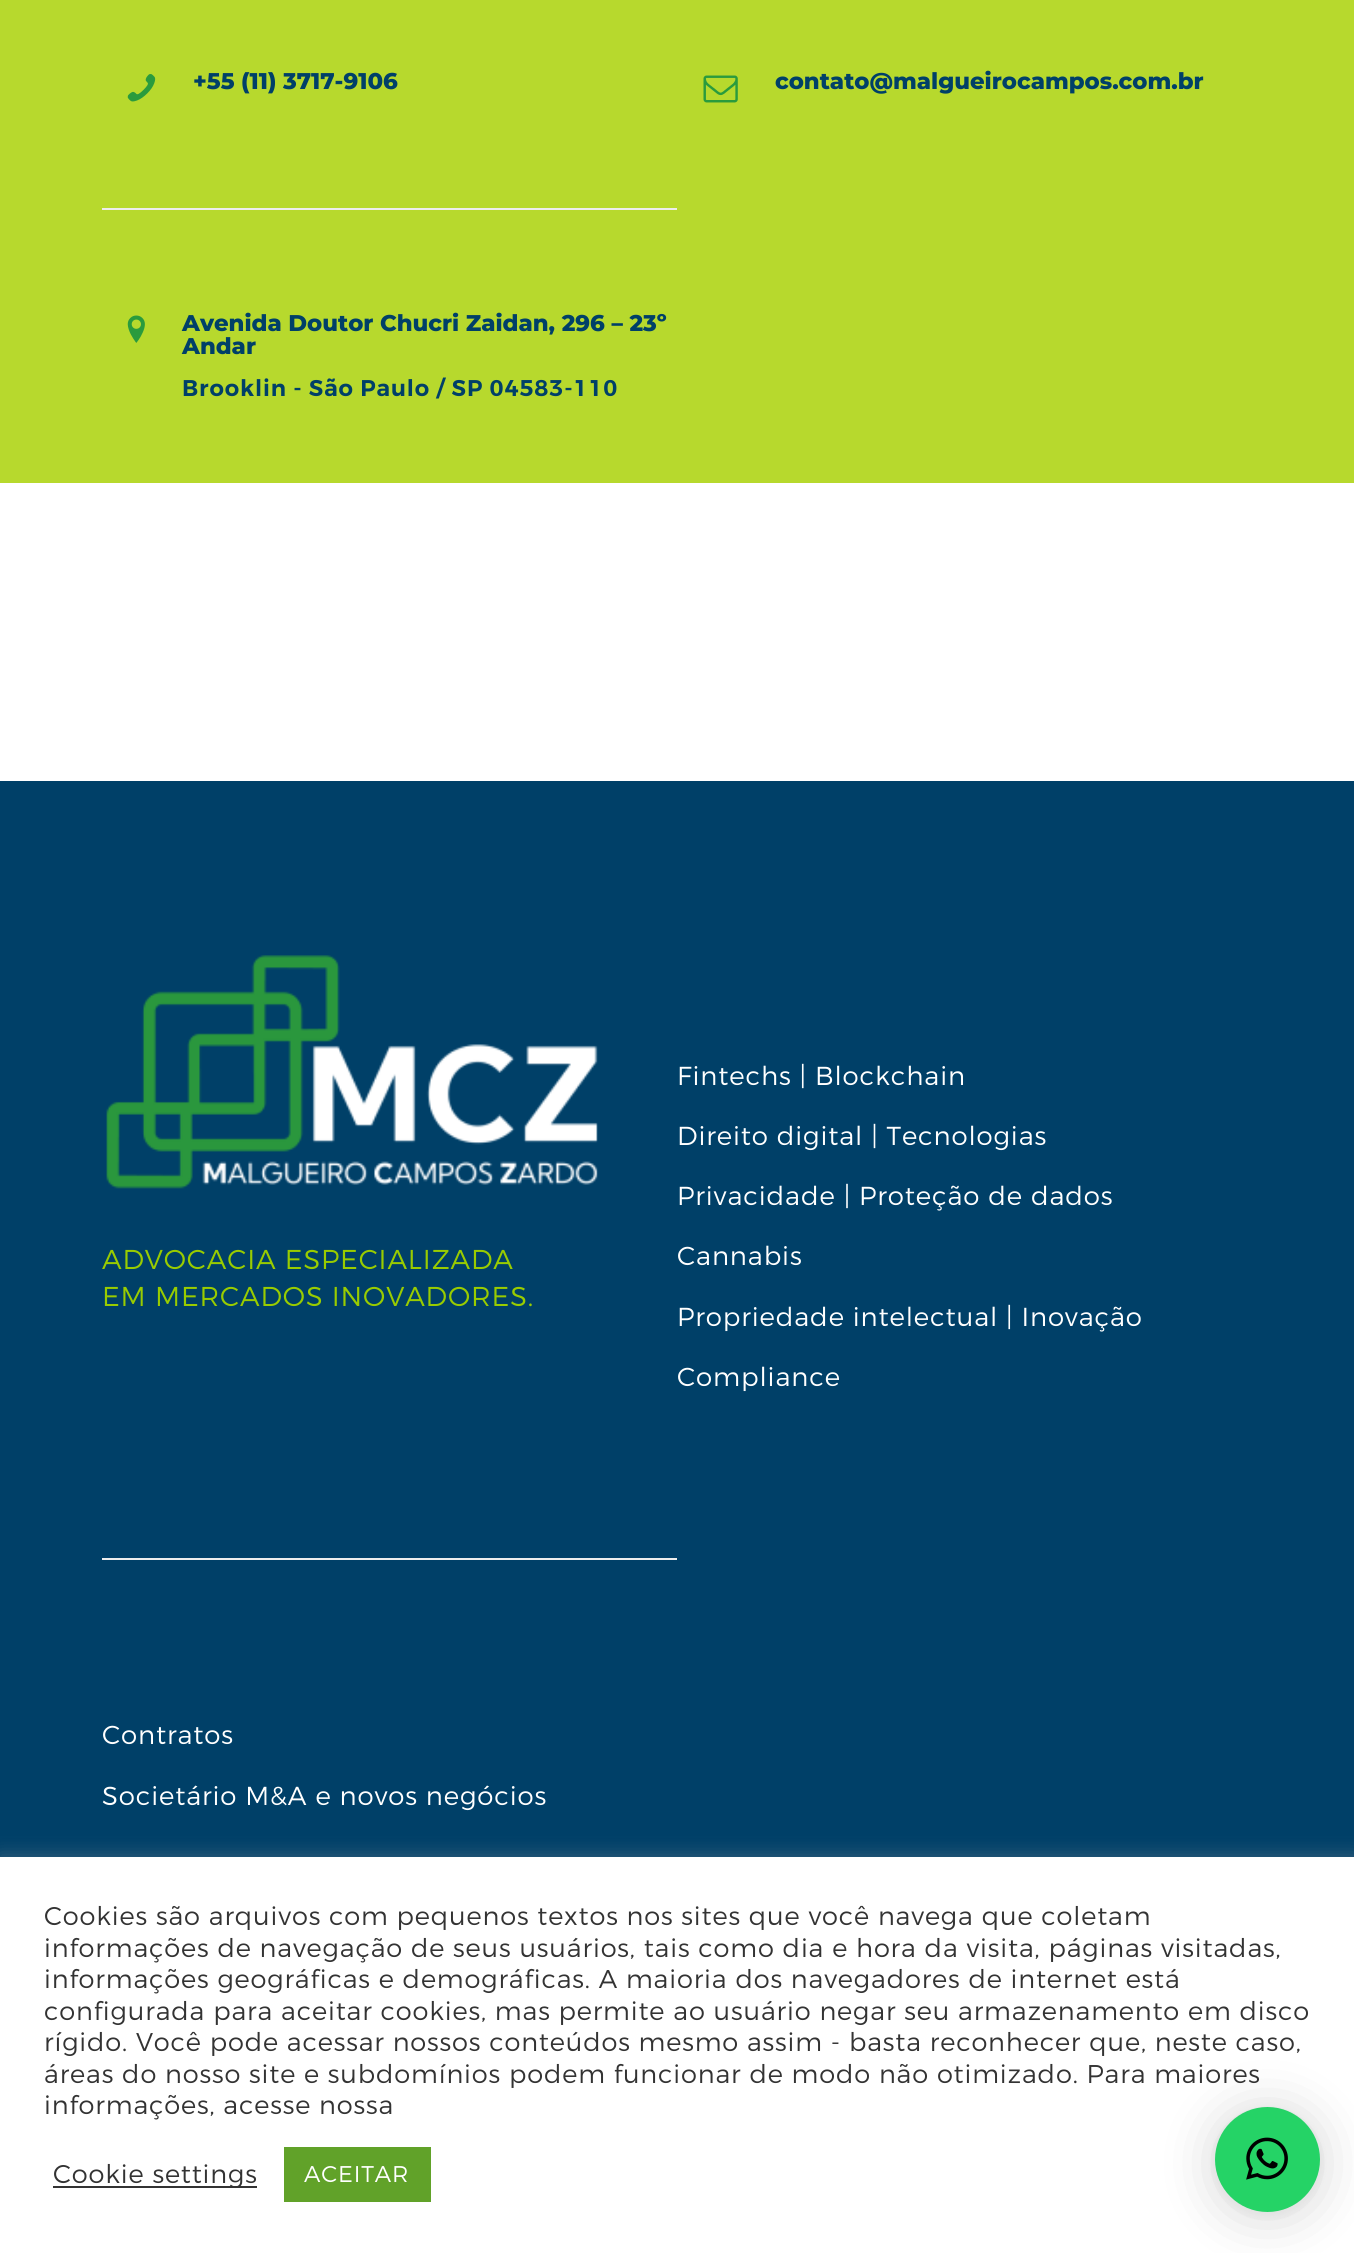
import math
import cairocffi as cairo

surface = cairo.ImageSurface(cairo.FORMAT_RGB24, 1354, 2253)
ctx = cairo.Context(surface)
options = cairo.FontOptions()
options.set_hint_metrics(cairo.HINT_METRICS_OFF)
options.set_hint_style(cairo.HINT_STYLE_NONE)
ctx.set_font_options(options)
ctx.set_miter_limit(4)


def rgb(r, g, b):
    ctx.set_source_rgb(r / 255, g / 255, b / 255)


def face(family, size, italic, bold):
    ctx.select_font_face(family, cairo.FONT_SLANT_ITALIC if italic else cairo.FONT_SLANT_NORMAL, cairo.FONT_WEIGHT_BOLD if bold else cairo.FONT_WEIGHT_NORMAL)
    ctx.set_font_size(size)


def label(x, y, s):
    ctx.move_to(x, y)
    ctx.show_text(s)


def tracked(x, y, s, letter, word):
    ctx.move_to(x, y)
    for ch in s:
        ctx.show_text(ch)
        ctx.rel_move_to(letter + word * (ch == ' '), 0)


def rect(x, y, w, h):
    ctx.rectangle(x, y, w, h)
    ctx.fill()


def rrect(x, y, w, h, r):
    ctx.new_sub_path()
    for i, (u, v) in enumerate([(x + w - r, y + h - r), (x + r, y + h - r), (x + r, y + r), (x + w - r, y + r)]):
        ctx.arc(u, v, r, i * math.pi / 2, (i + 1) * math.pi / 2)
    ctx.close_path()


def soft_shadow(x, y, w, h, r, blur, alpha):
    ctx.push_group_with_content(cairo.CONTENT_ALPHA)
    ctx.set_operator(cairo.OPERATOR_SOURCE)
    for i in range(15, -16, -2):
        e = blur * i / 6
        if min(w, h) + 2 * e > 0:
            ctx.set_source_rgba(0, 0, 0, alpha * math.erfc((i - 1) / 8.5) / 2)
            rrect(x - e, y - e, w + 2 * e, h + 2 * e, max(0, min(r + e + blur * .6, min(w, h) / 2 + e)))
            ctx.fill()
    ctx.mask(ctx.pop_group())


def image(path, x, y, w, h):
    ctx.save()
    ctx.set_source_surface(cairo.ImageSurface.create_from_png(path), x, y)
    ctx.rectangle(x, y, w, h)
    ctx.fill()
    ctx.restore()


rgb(255, 255, 255)
ctx.paint()
rgb(183, 217, 45)
rect(0, 0, 1354, 483)
image('image0.png', 127, 74, 29, 28)
face('Montserrat ExtraBold', 22.75, 0, 0)
rgb(0, 64, 104)
label(193, 89, '+55 (11) 3717-9106')
image('image1.png', 703, 75, 35, 28)
label(775, 89, 'contato@malgueirocampos.com.br')
rgb(237, 237, 237)
rect(102, 208, 575, 2)
image('image2.png', 127, 315, 18, 28)
rgb(0, 64, 104)
label(182, 331, 'Avenida Doutor Chucri Zaidan, 296 – 23º')
label(182, 354, 'Andar')
face('Montserrat SemiBold', 22.75, 0, 0)
tracked(182, 396, 'Brooklin - São Paulo / SP 04583-110', 0.88, 0)
rect(0, 781, 1354, 1076)
image('image3.png', 106, 955, 492, 234)
face('Montserrat Light', 27.25, 0, 0)
rgb(153, 204, 0)
tracked(102, 1269, 'ADVOCACIA ESPECIALIZADA', 0.88, 0)
tracked(102, 1306, 'EM MERCADOS INOVADORES.', 0.88, 0)
face('Montserrat Light', 26, 0, 0)
rgb(255, 255, 255)
tracked(677, 1085, 'Fintechs | Blockchain', 0.88, 0)
tracked(677, 1145, 'Direito digital | Tecnologias', 0.88, 0)
tracked(677, 1205, 'Privacidade | Proteção de dados', 0.88, 0)
tracked(677, 1265, 'Cannabis', 0.88, 0)
tracked(677, 1326, 'Propriedade intelectual | Inovação', 0.88, 0)
tracked(677, 1386, 'Compliance', 0.88, 0)
rgb(237, 237, 237)
rect(102, 1558, 575, 2)
rgb(255, 255, 255)
tracked(102, 1744, 'Contratos', 0.88, 0)
tracked(102, 1805, 'Societário M&A e novos negócios', 0.88, 0)
rgb(172, 171, 171)
soft_shadow(0, 1855, 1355, 397, 0, 9, 0.3)
rgb(255, 255, 255)
rect(0, 1857, 1354, 396)
face('Montserrat Light', 25.65, 0, 0)
rgb(51, 51, 51)
tracked(44, 1925, 'Cookies são arquivos com pequenos textos nos sites que você navega que coletam', 0.88, 0)
tracked(44, 1957, 'informações de navegação de seus usuários, tais como dia e hora da visita, páginas visitadas,', 0.88, 0)
tracked(44, 1988, 'informações geográficas e demográficas. A maioria dos navegadores de internet está', 0.88, 0)
tracked(44, 2020, 'configurada para aceitar cookies, mas permite ao usuário negar seu armazenamento em disco', 0.88, 0)
tracked(44, 2051, 'rígido. Você pode acessar nossos conteúdos mesmo assim - basta reconhecer que, neste caso,', 0.88, 0)
tracked(44, 2083, 'áreas do nosso site e subdomínios podem funcionar de modo não otimizado. Para maiores', 0.88, 0)
tracked(44, 2114, 'informações, acesse nossa', 0.88, 0)
rect(53, 2186, 204, 2)
tracked(53, 2183, 'Cookie settings', 0.88, 0)
rgb(97, 162, 41)
rect(284, 2147, 147, 55)
face('Montserrat Light', 22.75, 0, 0)
rgb(255, 255, 255)
tracked(304, 2182, 'ACEITAR', 0.88, 0)
rgb(0, 0, 0)
soft_shadow(1215, 2111, 105, 105, 52.5, 28, 0.16)
soft_shadow(1215, 2109, 105, 105, 52.5, 5, 0.06)
rgb(37, 211, 102)
ctx.arc(1267.5, 2159.5, 52.5, 0, 2 * math.pi)
ctx.fill()
image('image4.png', 1246, 2137, 42, 43)
surface.write_to_png('render.png')
